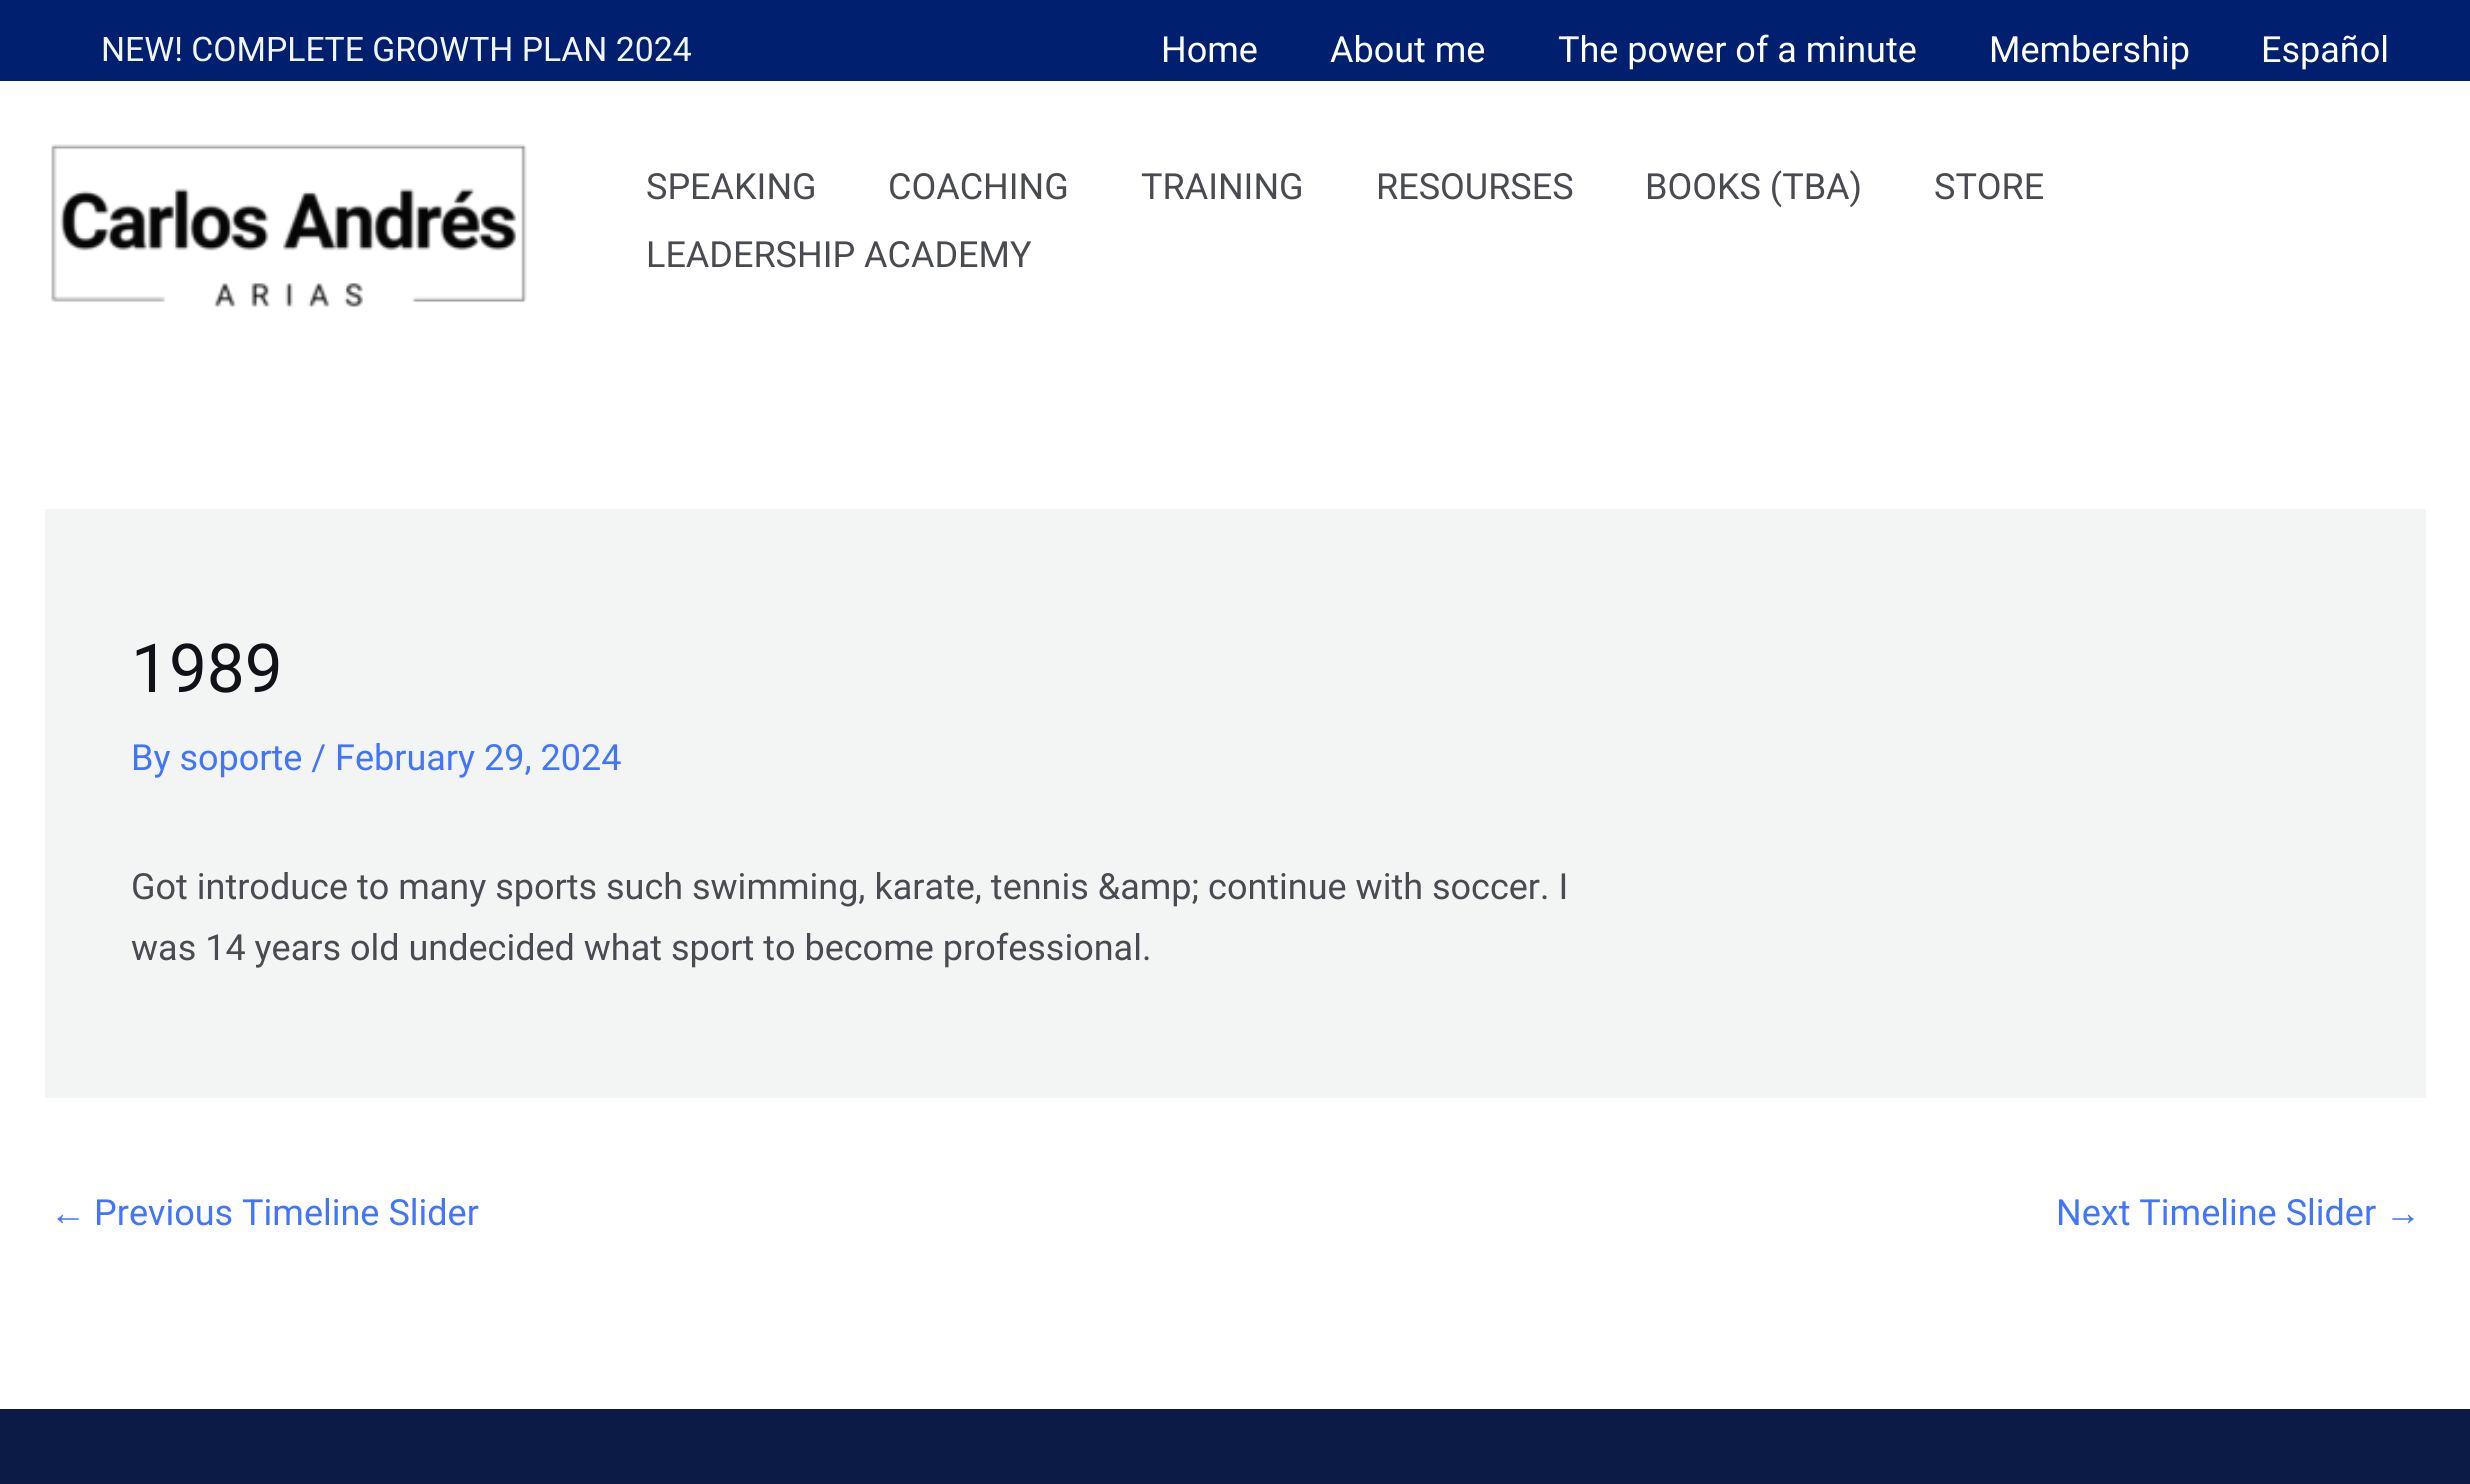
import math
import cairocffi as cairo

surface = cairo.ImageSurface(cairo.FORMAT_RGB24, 2470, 1484)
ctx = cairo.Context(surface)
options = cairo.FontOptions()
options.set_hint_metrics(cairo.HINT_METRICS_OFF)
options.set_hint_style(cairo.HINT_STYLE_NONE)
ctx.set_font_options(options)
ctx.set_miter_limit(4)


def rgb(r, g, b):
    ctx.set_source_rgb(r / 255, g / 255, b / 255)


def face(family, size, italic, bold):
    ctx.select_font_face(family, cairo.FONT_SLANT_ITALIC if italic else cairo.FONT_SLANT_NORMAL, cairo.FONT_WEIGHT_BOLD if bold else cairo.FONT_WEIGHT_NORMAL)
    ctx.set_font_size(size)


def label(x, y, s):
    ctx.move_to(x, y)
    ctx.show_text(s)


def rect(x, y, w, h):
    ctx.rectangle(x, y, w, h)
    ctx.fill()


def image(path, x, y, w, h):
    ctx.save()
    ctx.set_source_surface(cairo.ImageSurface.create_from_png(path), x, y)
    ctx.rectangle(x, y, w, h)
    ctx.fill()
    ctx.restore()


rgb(255, 255, 255)
ctx.paint()
rgb(0, 32, 111)
rect(0, 0, 2470, 81)
face('Roboto', 33.75, 0, 0)
rgb(243, 245, 245)
label(101, 61, 'NEW! COMPLETE GROWTH PLAN 2024')
face('Roboto', 36, 0, 0)
rgb(255, 255, 255)
label(1161, 62, 'Home')
label(1330, 62, 'About me')
label(1558, 62, 'The power of a minute')
label(1989, 62, 'Membership')
label(2261, 62, 'Español')
image('image0.png', 51, 144, 476, 164)
rgb(73, 75, 81)
label(646, 199, 'SPEAKING')
label(888, 199, 'COACHING')
label(1141, 199, 'TRAINING')
label(1376, 199, 'RESOURSES')
label(1645, 199, 'BOOKS (TBA)')
label(1934, 199, 'STORE')
label(646, 267, 'LEADERSHIP ACADEMY')
rgb(243, 245, 245)
rect(45, 509, 2381, 589)
face('Roboto', 67.5, 0, 0)
rgb(16, 18, 24)
label(131, 692, '1989')
face('Roboto', 36, 0, 0)
rgb(65, 117, 252)
label(131, 770, 'By soporte / February 29, 2024')
rgb(73, 75, 81)
label(131, 899, 'Got introduce to many sports such swimming, karate, tennis &amp; continue with soccer. I')
label(131, 960, 'was 14 years old undecided what sport to become professional.')
face('Liberation Sans', 36, 0, 0)
rgb(65, 117, 252)
label(50, 1225, '←')
face('Roboto', 36, 0, 0)
label(94, 1225, 'Previous Timeline Slider')
label(2056, 1225, 'Next Timeline Slider')
face('Liberation Sans', 36, 0, 0)
label(2385, 1225, '→')
rgb(11, 27, 70)
rect(0, 1409, 2470, 75)
surface.write_to_png('render.png')
